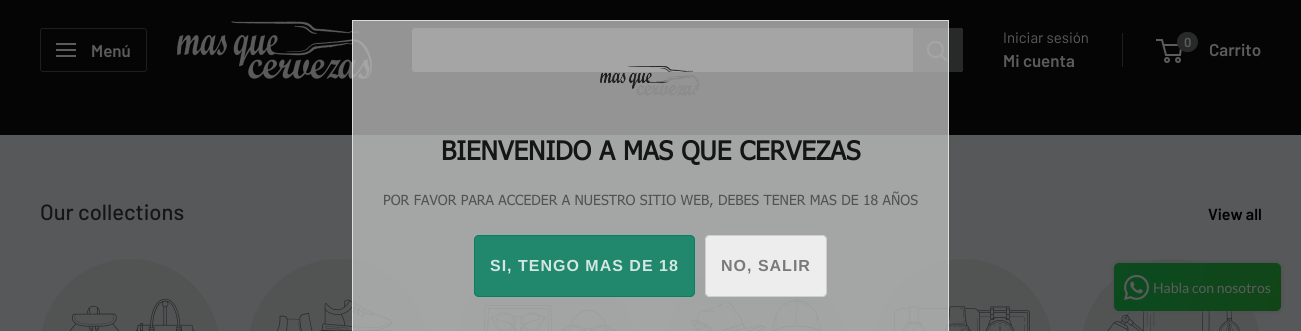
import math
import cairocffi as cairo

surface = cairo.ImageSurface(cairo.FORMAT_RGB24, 1301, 331)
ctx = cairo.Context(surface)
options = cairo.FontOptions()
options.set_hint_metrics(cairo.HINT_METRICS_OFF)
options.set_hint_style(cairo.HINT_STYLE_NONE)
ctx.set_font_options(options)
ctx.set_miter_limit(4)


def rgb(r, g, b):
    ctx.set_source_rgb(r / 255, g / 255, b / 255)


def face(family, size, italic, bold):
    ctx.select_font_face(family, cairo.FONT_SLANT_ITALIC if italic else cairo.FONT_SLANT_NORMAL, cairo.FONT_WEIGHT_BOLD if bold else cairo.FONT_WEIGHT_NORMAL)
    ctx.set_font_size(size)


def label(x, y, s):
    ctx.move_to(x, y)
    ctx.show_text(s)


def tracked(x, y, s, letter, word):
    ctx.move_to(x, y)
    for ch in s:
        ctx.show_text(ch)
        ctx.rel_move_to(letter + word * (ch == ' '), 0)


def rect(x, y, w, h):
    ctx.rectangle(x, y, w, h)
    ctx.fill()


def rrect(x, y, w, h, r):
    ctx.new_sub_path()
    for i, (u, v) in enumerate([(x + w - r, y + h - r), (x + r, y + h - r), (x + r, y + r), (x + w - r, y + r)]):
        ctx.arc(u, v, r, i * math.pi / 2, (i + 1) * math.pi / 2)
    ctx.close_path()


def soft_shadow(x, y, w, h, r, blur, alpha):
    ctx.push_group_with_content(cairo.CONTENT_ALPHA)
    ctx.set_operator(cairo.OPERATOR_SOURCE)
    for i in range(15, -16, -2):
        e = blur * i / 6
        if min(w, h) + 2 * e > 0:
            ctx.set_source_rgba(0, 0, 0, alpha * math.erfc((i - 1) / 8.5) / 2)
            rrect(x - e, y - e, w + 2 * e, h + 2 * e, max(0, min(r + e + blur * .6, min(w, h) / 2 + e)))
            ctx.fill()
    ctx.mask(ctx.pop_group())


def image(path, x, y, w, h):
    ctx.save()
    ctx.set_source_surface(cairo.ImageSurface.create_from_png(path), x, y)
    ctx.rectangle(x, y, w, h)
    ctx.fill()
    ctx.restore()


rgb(87, 88, 89)
ctx.paint()
rgb(5, 5, 5)
rect(0, 0, 1301, 135)
rrect(40.5, 28.5, 106, 43, 2.5)
rgb(30, 30, 30)
ctx.set_line_width(1)
ctx.stroke()
image('image0.png', 56, 43, 20, 14)
face('Barlow SemiBold', 17, 0, 0)
rgb(92, 92, 92)
label(91, 57, 'Menú')
image('image1.png', 177, 21, 195, 58)
rrect(412, 28, 551, 44, 3)
ctx.fill()
rgb(40, 41, 41)
ctx.new_path()
ctx.move_to(913, 28)
ctx.line_to(960, 28)
ctx.curve_to(961.5, 28, 963, 29.5, 963, 31)
ctx.line_to(963, 69)
ctx.curve_to(963, 70.5, 961.5, 72, 960, 72)
ctx.line_to(913, 72)
ctx.close_path()
ctx.fill()
ctx.new_path()
ctx.move_to(946, 60)
ctx.line_to(941, 55)
rgb(92, 92, 92)
ctx.set_line_width(2)
ctx.set_line_cap(cairo.LINE_CAP_SQUARE)
ctx.stroke()
ctx.arc(935.5, 49.5, 7.5, 0, 2 * math.pi)
ctx.set_line_cap(cairo.LINE_CAP_BUTT)
ctx.stroke()
face('Barlow', 15, 0, 0)
label(1003, 43, 'Iniciar sesión')
rgb(30, 30, 30)
rect(1122, 33, 1, 34)
face('Barlow SemiBold', 17, 0, 0)
rgb(92, 92, 92)
label(1003, 67, 'Mi cuenta')
ctx.new_path()
ctx.arc(1167, 60, 2, 0, 2 * math.pi)
ctx.stroke()
ctx.arc(1178, 60, 2, 0, 2 * math.pi)
ctx.stroke()
ctx.new_path()
ctx.move_to(1163.5, 45)
ctx.line_to(1181.5, 45)
ctx.line_to(1180, 55)
ctx.line_to(1166, 55)
ctx.line_to(1162, 40)
ctx.line_to(1156, 40)
ctx.stroke()
rgb(40, 41, 41)
rrect(1177, 32, 21, 20, 10)
ctx.fill()
face('Barlow SemiBold', 13, 0, 0)
rgb(92, 92, 92)
label(1184, 47, '0')
face('Barlow SemiBold', 17, 0, 0)
label(1209, 56, 'Carrito')
rgb(82, 84, 84)
rrect(248, 259, 180, 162, 90)
ctx.fill()
image('image4.png', 277, 299, 116, 32)
rrect(456, 259, 180, 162, 90)
ctx.fill()
image('image5.png', 484, 305, 132, 26)
rrect(665, 259, 180, 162, 90)
ctx.fill()
image('image6.png', 691, 299, 130, 32)
rrect(873, 259, 180, 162, 90)
ctx.fill()
image('image7.png', 894, 306, 136, 25)
ctx.set_source_rgba(0.722, 0.722, 0.722, 0.8)
rect(352, 20, 597, 311)
ctx.rectangle(352.5, 20.5, 596, 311)
ctx.set_source_rgba(0.925, 0.925, 0.925, 0.8)
ctx.set_line_width(1)
ctx.stroke()
image('image2.png', 600, 65, 100, 31)
face('Tahoma', 26, 0, 1)
rgb(21, 21, 21)
label(441, 160, 'BIENVENIDO A MAS QUE CERVEZAS')
face('Tahoma', 14, 0, 0)
rgb(81, 82, 82)
label(383, 205, 'POR FAVOR PARA ACCEDER A NUESTRO SITIO WEB, DEBES TENER MAS DE 18 AÑOS')
rgb(33, 135, 109)
rrect(474, 235, 221, 62, 5)
ctx.fill()
rrect(474.5, 235.5, 220, 61, 4.5)
ctx.set_source_rgba(0, 0.498, 0.373, 0.8)
ctx.stroke()
face('Liberation Sans', 16, 0, 1)
rgb(211, 231, 226)
tracked(490, 271, 'SI, TENGO MAS DE 18', 1, 0)
rgb(237, 237, 237)
rrect(705, 235, 122, 62, 5)
ctx.fill()
rrect(705.5, 235.5, 121, 61, 4.5)
ctx.set_source_rgba(0.784, 0.784, 0.784, 0.8)
ctx.stroke()
rgb(121, 121, 121)
tracked(721, 271, 'NO, SALIR', 1, 0)
face('Barlow Medium', 22, 0, 0)
rgb(21, 21, 21)
label(40, 220, 'Our collections')
face('Barlow SemiBold', 16, 0, 0)
rgb(0, 0, 0)
label(1208, 220, 'View all')
rgb(82, 84, 84)
rrect(40, 259, 180, 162, 90)
ctx.fill()
image('image3.png', 69, 298, 126, 33)
rrect(1081, 259, 180, 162, 90)
ctx.fill()
image('image8.png', 1107, 311, 133, 20)
rgb(76, 76, 76)
soft_shadow(1114, 263, 167, 48, 5, 2.5, 1)
gradient = cairo.LinearGradient(1118, 254, 1277, 320)
gradient.add_color_stop_rgba(0, 0.047, 0.29, 0.125, 1)
gradient.add_color_stop_rgba(0, 0.047, 0.29, 0.125, 1)
gradient.add_color_stop_rgba(1, 0.067, 0.271, 0.094, 1)
ctx.set_source(gradient)
rrect(1114, 263, 167, 48, 5)
ctx.fill()
image('image9.png', 1124, 275, 25, 25)
face('Lato', 14, 0, 0)
rgb(92, 92, 92)
label(1153, 293, 'Habla con nosotros')
surface.write_to_png('render.png')
